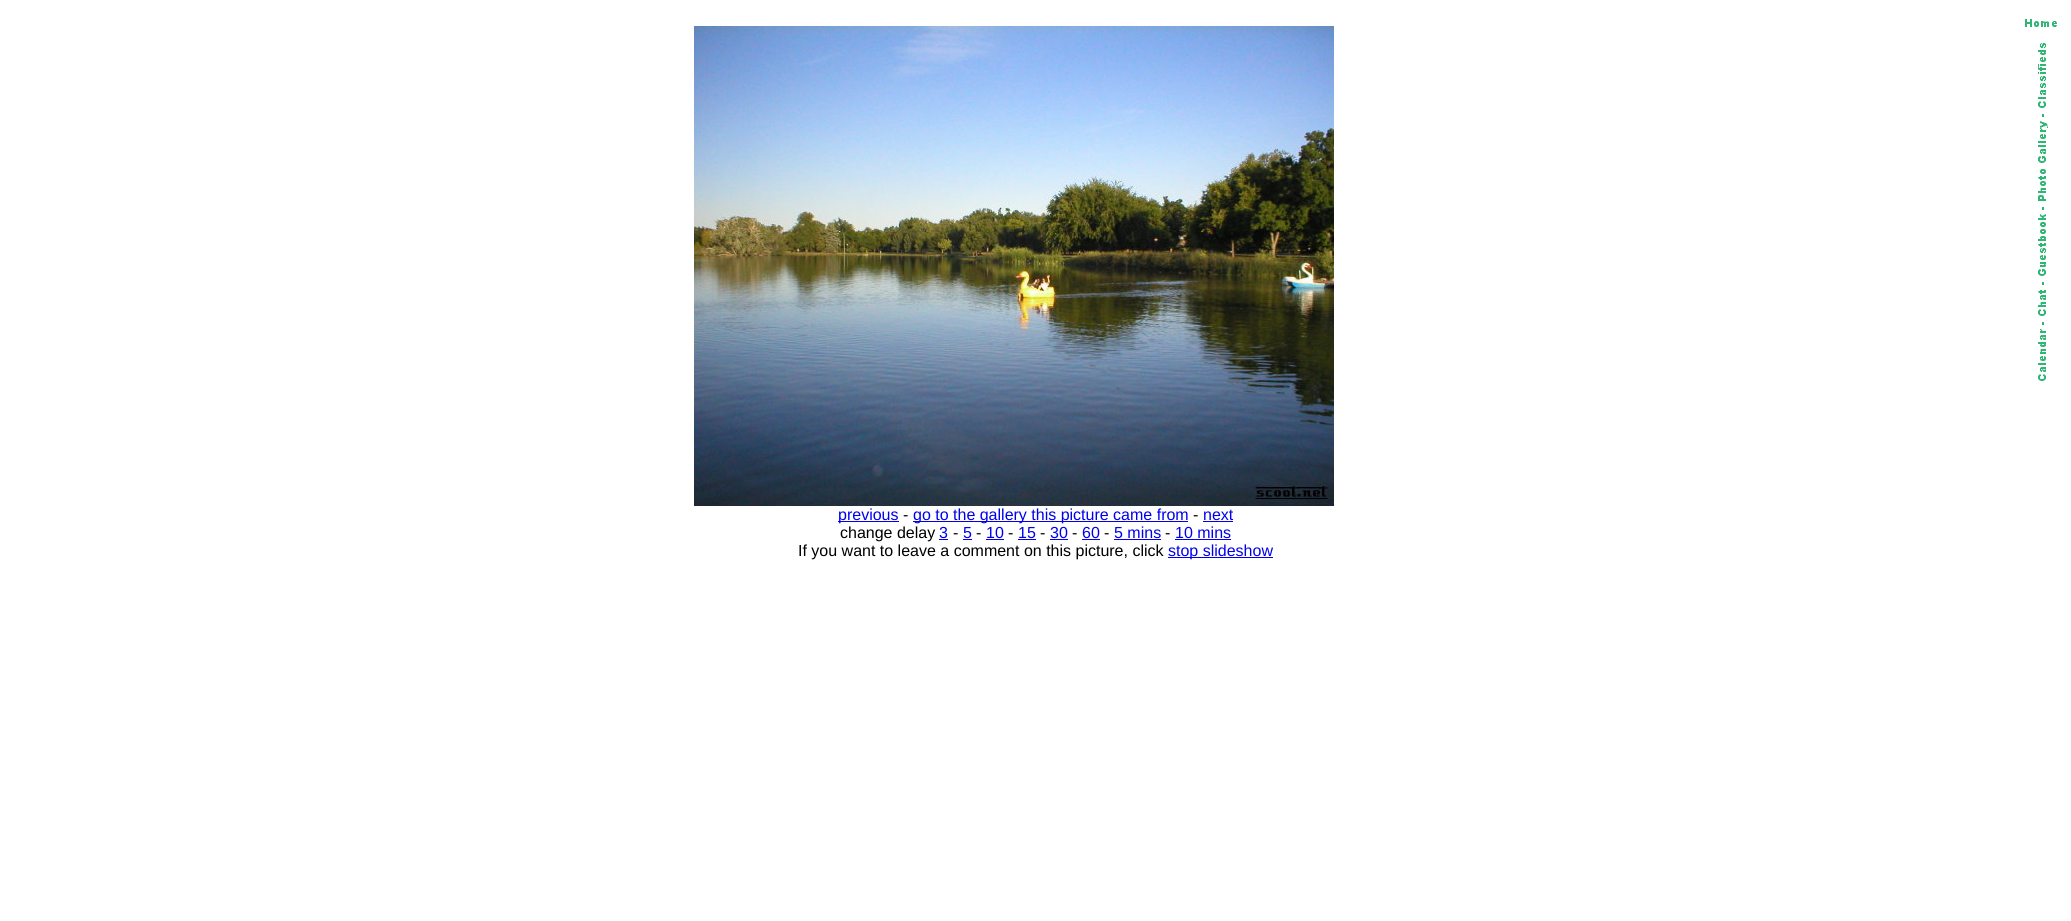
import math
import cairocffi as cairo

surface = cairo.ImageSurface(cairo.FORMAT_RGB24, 2071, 921)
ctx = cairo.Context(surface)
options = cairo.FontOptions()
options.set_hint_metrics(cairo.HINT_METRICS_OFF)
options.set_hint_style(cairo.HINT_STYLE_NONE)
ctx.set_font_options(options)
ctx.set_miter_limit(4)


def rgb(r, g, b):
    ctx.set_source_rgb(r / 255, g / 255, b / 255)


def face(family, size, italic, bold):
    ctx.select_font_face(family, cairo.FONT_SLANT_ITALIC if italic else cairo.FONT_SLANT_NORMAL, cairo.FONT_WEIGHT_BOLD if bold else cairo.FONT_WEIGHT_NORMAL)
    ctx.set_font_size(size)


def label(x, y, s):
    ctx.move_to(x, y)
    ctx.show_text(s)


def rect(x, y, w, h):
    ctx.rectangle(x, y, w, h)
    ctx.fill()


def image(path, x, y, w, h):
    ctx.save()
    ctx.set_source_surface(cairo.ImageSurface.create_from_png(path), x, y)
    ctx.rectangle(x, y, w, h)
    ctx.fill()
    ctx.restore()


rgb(255, 255, 255)
ctx.paint()
image('image0.png', 2025, 19, 32, 8)
image('image1.png', 2038, 43, 10, 338)
image('image2.png', 694, 26, 640, 480)
rgb(0, 0, 238)
rect(838, 521, 61, 1)
face('Liberation Sans', 16, 0, 0)
label(838, 520, 'previous')
rgb(0, 0, 0)
label(903, 520, '-')
rgb(0, 0, 238)
rect(913, 521, 275, 1)
label(913, 520, 'go to the gallery this picture came from')
rgb(0, 0, 0)
label(1193, 520, '-')
rgb(0, 0, 238)
label(1203, 520, 'next')
rect(1203, 521, 30, 1)
rgb(0, 0, 0)
label(840, 538, 'change delay')
rgb(0, 0, 238)
label(939, 538, '3')
rect(939, 539, 9, 1)
rgb(0, 0, 0)
label(953, 538, '-')
rgb(0, 0, 238)
label(963, 538, '5')
rect(963, 539, 9, 1)
rgb(0, 0, 0)
label(976, 538, '-')
rgb(0, 0, 238)
label(986, 538, '10')
rect(986, 539, 18, 1)
rgb(0, 0, 0)
label(1008, 538, '-')
rgb(0, 0, 238)
label(1018, 538, '15')
rect(1018, 539, 18, 1)
rgb(0, 0, 0)
label(1040, 538, '-')
rgb(0, 0, 238)
label(1050, 538, '30')
rect(1050, 539, 18, 1)
rgb(0, 0, 0)
label(1072, 538, '-')
rgb(0, 0, 238)
label(1082, 538, '60')
rect(1082, 539, 18, 1)
rgb(0, 0, 0)
label(1104, 538, '-')
rgb(0, 0, 238)
label(1114, 538, '5 mins')
rect(1114, 539, 47, 1)
rgb(0, 0, 0)
label(1165, 538, '-')
rgb(0, 0, 238)
label(1175, 538, '10 mins')
rect(1175, 539, 56, 1)
rgb(0, 0, 0)
label(798, 556, 'If you want to leave a comment on this picture, click')
rgb(0, 0, 238)
rect(1168, 557, 105, 1)
label(1168, 556, 'stop slideshow')
surface.write_to_png('render.png')
